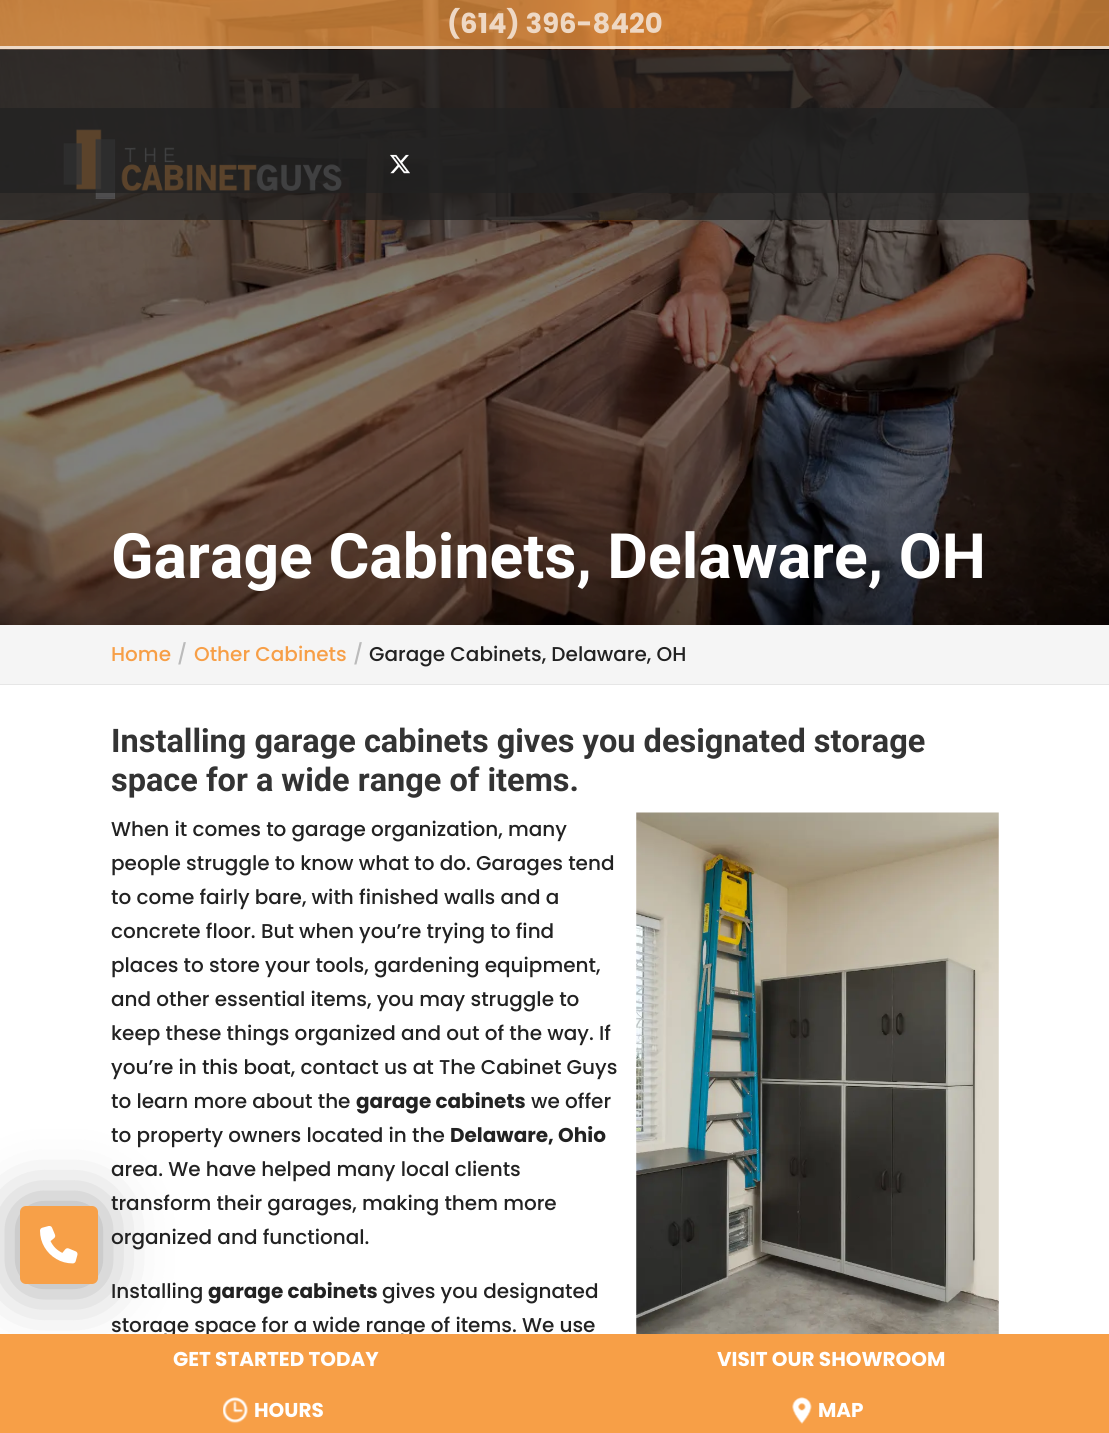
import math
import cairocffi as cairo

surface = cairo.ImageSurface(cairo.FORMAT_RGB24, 1109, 1433)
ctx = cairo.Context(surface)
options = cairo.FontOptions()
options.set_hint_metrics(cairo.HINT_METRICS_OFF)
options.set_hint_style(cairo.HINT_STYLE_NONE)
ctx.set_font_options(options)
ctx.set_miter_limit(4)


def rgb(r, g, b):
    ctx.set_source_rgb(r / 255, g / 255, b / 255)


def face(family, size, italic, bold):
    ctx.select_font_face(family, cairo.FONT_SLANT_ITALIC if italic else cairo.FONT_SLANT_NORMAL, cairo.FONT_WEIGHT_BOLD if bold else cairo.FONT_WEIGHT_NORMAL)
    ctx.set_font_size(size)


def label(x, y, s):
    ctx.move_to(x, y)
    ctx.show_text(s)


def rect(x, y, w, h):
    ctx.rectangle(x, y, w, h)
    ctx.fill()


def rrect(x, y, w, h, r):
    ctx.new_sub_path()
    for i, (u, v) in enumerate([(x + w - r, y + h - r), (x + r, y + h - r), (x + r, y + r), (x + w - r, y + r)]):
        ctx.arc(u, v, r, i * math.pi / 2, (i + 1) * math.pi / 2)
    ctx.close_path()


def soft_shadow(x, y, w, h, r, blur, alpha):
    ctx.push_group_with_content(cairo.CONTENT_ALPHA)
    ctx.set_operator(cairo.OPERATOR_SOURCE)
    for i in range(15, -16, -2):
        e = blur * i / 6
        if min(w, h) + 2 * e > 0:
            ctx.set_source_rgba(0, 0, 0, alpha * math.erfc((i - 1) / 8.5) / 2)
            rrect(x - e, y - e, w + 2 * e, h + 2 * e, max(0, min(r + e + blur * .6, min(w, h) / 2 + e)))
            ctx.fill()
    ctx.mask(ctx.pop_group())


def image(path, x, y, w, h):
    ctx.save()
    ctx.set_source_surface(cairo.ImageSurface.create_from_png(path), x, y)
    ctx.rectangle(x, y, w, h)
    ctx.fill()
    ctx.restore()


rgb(255, 255, 255)
ctx.paint()
rgb(0, 0, 0)
soft_shadow(20, 1206, 78, 78, 6, 31, 0.4)
rgb(247, 160, 72)
rrect(20, 1206, 78, 78, 6)
ctx.fill()
image('image0.png', 40, 1226, 38, 38)
image('image3.png', 0, 0, 1109, 625)
ctx.set_source_rgba(0.969, 0.624, 0.278, 0.7)
rect(0, 0, 1109, 49)
ctx.set_source_rgba(1, 1, 1, 0.7)
rect(0, 46, 1109, 3)
face('Poppins', 27.5, 0, 1)
rgb(238, 216, 196)
label(447, 33, '(614) 396-8420')
face('Poppins Medium', 20, 0, 0)
rgb(34, 34, 34)
label(111, 1332, 'storage space for a wide range of items. We use')
rgb(247, 159, 71)
rect(0, 1334, 1109, 99)
face('Poppins', 20, 0, 1)
rgb(255, 255, 255)
label(173, 1366, 'GET STARTED TODAY')
label(717, 1366, 'VISIT OUR SHOWROOM')
image('image1.png', 223, 1397, 25, 27)
label(254, 1417, 'HOURS')
image('image2.png', 792, 1397, 20, 27)
label(818, 1417, 'MAP')
face('Roboto', 62.5, 0, 1)
label(111, 578, 'Garage Cabinets, Delaware, OH')
rgb(230, 230, 230)
rect(0, 684, 1109, 1)
rgb(245, 245, 245)
rect(0, 625, 1109, 59)
face('Poppins Medium', 20, 0, 0)
rgb(247, 159, 71)
label(111, 661, 'Home')
rgb(187, 187, 187)
label(177, 661, '/')
rgb(247, 159, 71)
label(194, 661, 'Other Cabinets')
rgb(187, 187, 187)
label(353, 661, '/')
rgb(34, 34, 34)
label(369, 661, 'Garage Cabinets, Delaware, OH')
face('Roboto', 32.5, 0, 1)
rgb(51, 51, 51)
label(111, 752, 'Installing garage cabinets gives you designated storage')
label(111, 791, 'space for a wide range of items.')
face('Poppins Medium', 20, 0, 0)
rgb(34, 34, 34)
label(111, 836, 'When it comes to garage organization, many')
image('image4.png', 636, 812, 363, 522)
label(111, 870, 'people struggle to know what to do. Garages tend')
label(111, 904, 'to come fairly bare, with finished walls and a')
label(111, 938, 'concrete floor. But when you’re trying to find')
label(111, 972, 'places to store your tools, gardening equipment,')
label(111, 1006, 'and other essential items, you may struggle to')
label(111, 1040, 'keep these things organized and out of the way. If')
label(111, 1074, 'you’re in this boat, contact us at The Cabinet Guys')
label(111, 1108, 'to learn more about the')
face('Poppins', 20, 0, 1)
label(356, 1108, 'garage cabinets')
face('Poppins Medium', 20, 0, 0)
label(531, 1108, 'we offer')
label(111, 1142, 'to property owners located in the')
face('Poppins', 20, 0, 1)
label(450, 1142, 'Delaware, Ohio')
face('Poppins Medium', 20, 0, 0)
label(111, 1176, 'area. We have helped many local clients')
label(111, 1210, 'transform their garages, making them more')
label(111, 1244, 'organized and functional.')
label(111, 1298, 'Installing')
face('Poppins', 20, 0, 1)
label(208, 1298, 'garage cabinets')
face('Poppins Medium', 20, 0, 0)
label(382, 1298, 'gives you designated')
ctx.set_source_rgba(0.133, 0.133, 0.133, 0.73)
rect(0, 108, 1109, 112)
image('image6.png', 63, 129, 279, 70)
rect(0, 50, 1109, 143)
image('image5.png', 390, 154, 20, 20)
surface.write_to_png('render.png')
